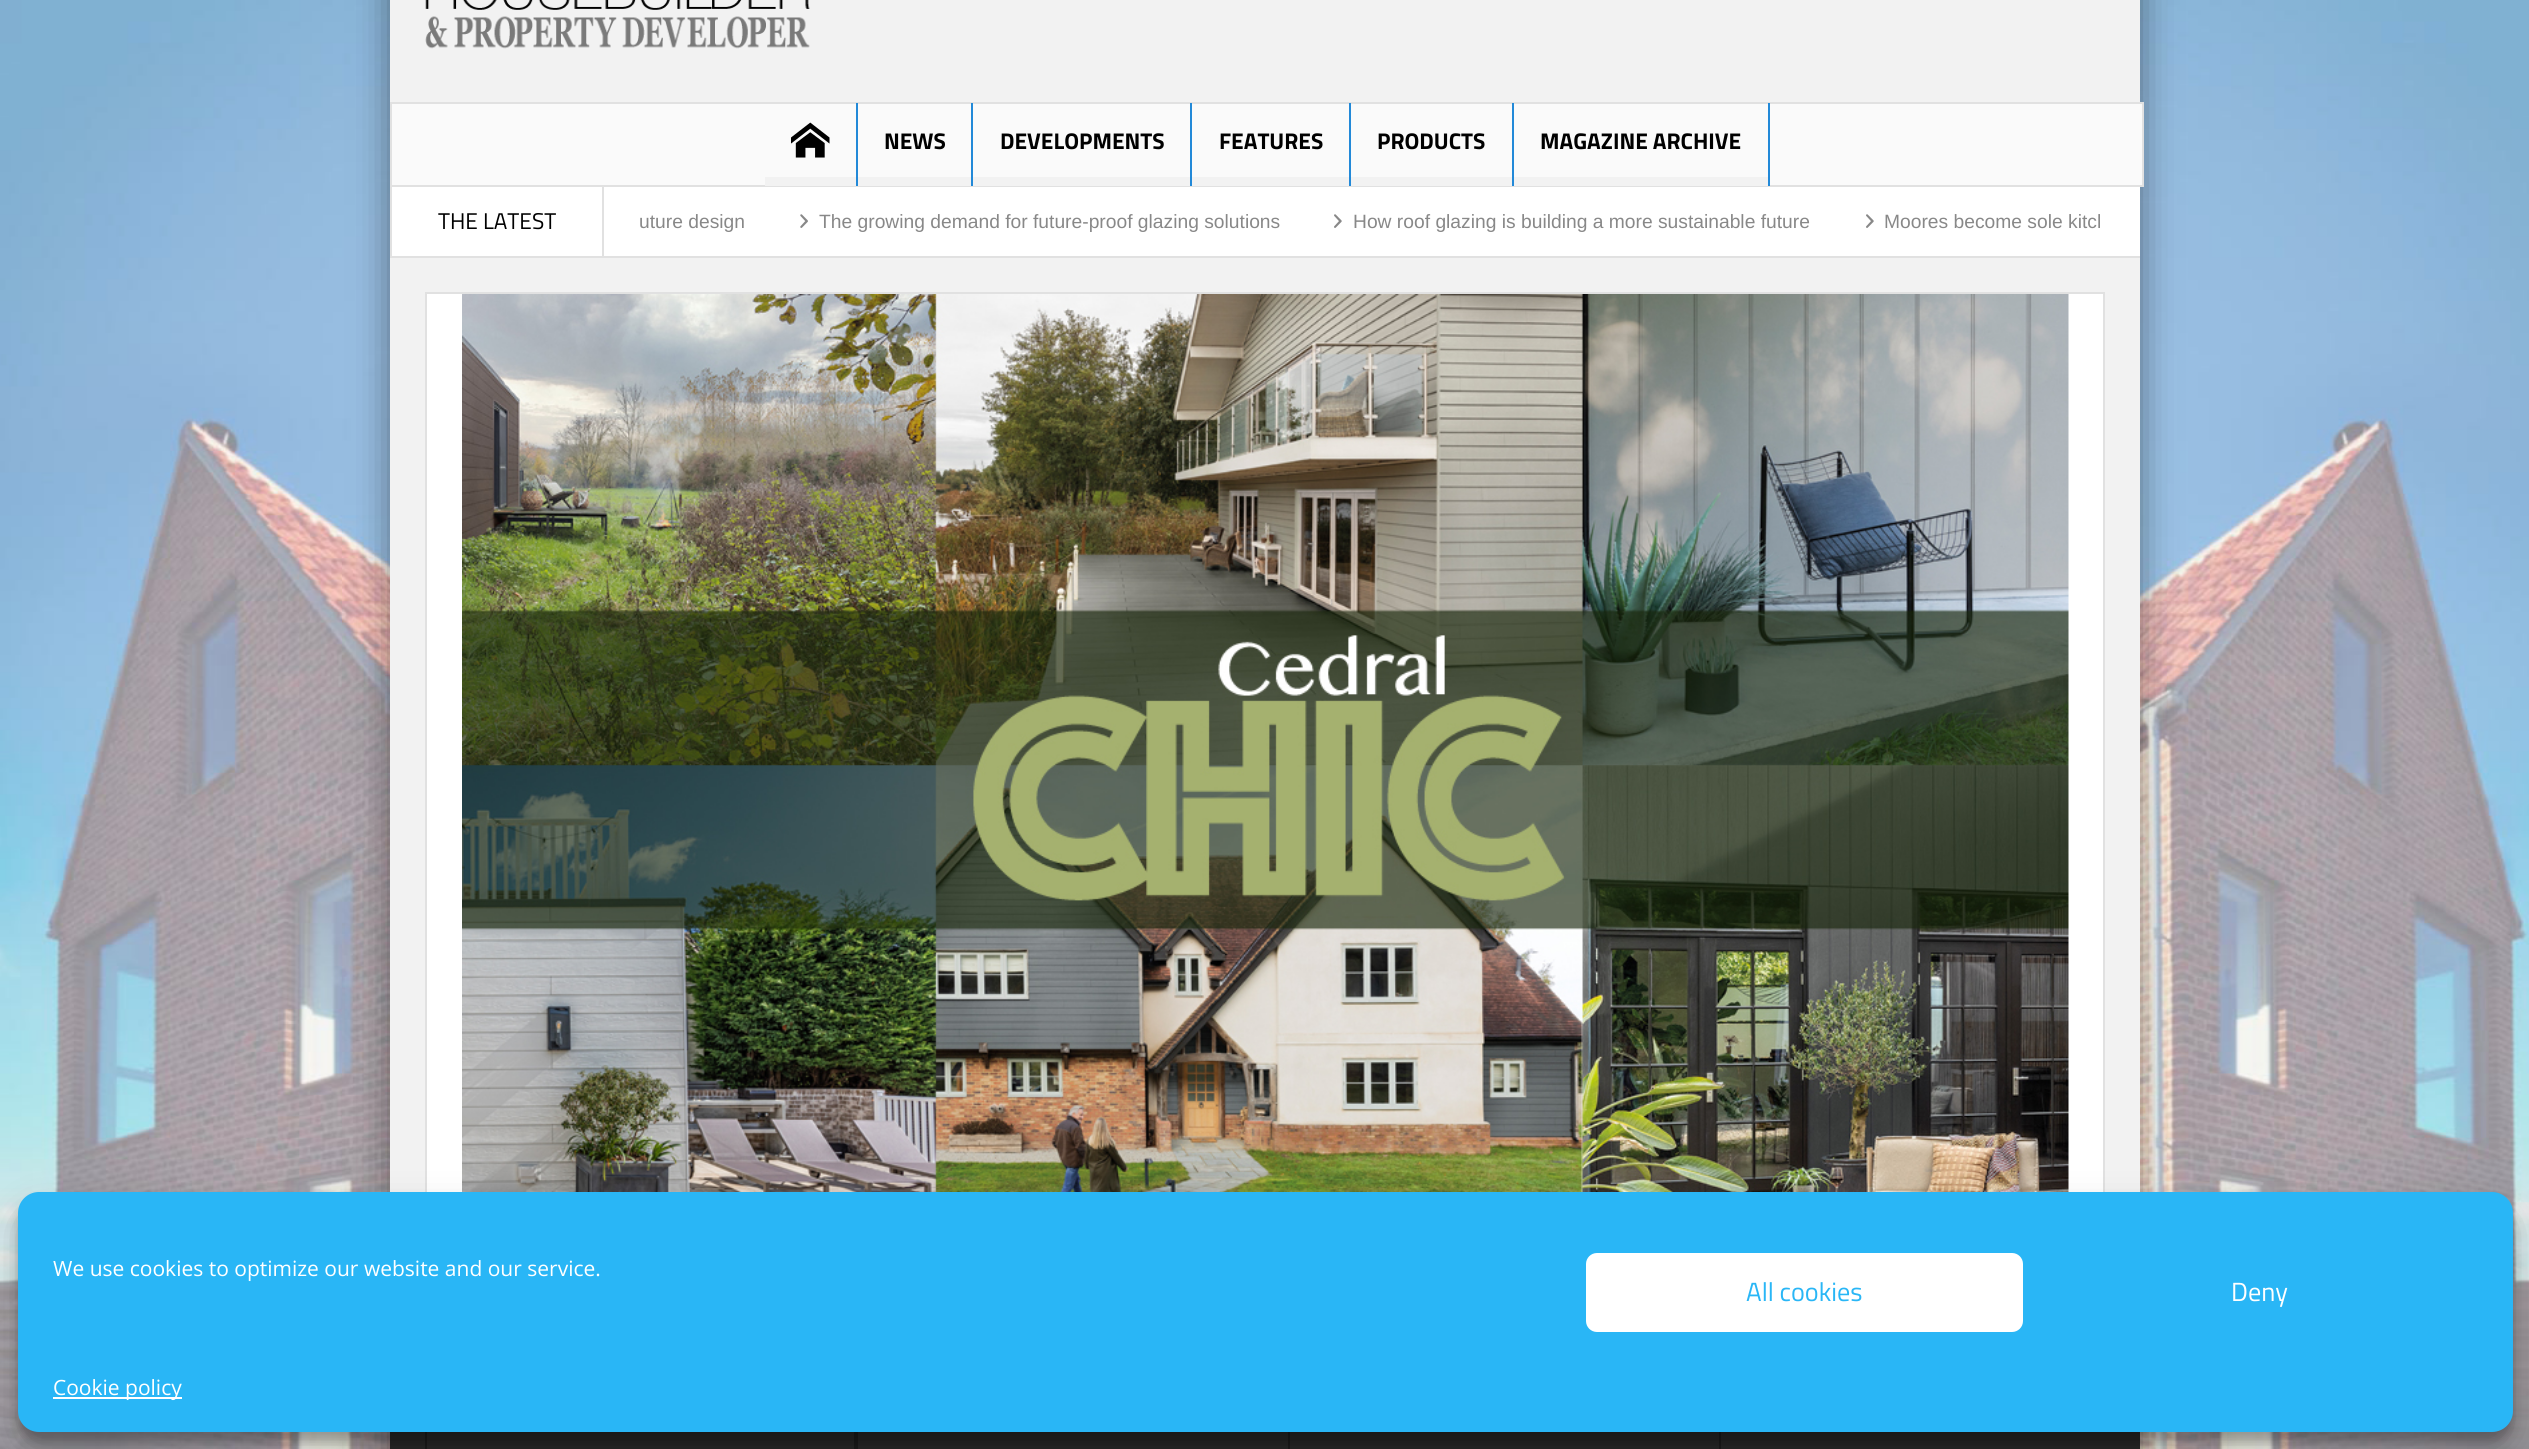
import math
import cairocffi as cairo

surface = cairo.ImageSurface(cairo.FORMAT_RGB24, 2529, 1449)
ctx = cairo.Context(surface)
options = cairo.FontOptions()
options.set_hint_metrics(cairo.HINT_METRICS_OFF)
options.set_hint_style(cairo.HINT_STYLE_NONE)
ctx.set_font_options(options)
ctx.set_miter_limit(4)


def rgb(r, g, b):
    ctx.set_source_rgb(r / 255, g / 255, b / 255)


def face(family, size, italic, bold):
    ctx.select_font_face(family, cairo.FONT_SLANT_ITALIC if italic else cairo.FONT_SLANT_NORMAL, cairo.FONT_WEIGHT_BOLD if bold else cairo.FONT_WEIGHT_NORMAL)
    ctx.set_font_size(size)


def label(x, y, s):
    ctx.move_to(x, y)
    ctx.show_text(s)


def rect(x, y, w, h):
    ctx.rectangle(x, y, w, h)
    ctx.fill()


def rrect(x, y, w, h, r):
    ctx.new_sub_path()
    for i, (u, v) in enumerate([(x + w - r, y + h - r), (x + r, y + h - r), (x + r, y + r), (x + w - r, y + r)]):
        ctx.arc(u, v, r, i * math.pi / 2, (i + 1) * math.pi / 2)
    ctx.close_path()


def soft_shadow(x, y, w, h, r, blur, alpha):
    ctx.push_group_with_content(cairo.CONTENT_ALPHA)
    ctx.set_operator(cairo.OPERATOR_SOURCE)
    for i in range(15, -16, -2):
        e = blur * i / 6
        if min(w, h) + 2 * e > 0:
            ctx.set_source_rgba(0, 0, 0, alpha * math.erfc((i - 1) / 8.5) / 2)
            rrect(x - e, y - e, w + 2 * e, h + 2 * e, max(0, min(r + e + blur * .6, min(w, h) / 2 + e)))
            ctx.fill()
    ctx.mask(ctx.pop_group())


def image(path, x, y, w, h):
    ctx.save()
    ctx.set_source_surface(cairo.ImageSurface.create_from_png(path), x, y)
    ctx.rectangle(x, y, w, h)
    ctx.fill()
    ctx.restore()


rgb(255, 255, 255)
ctx.paint()
image('image0.png', 0, 0, 2529, 1449)
rgb(0, 0, 0)
soft_shadow(390, -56, 1750, 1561, 0, 18.5, 0.44)
rgb(242, 242, 242)
rect(390, 0, 1750, 1192)
image('image1.png', 425, 0, 385, 49)
rgb(250, 250, 250)
ctx.rectangle(391, 103, 1752, 83)
ctx.fill_preserve()
rgb(225, 225, 225)
ctx.stroke()
rgb(34, 137, 216)
rect(856, 103, 2, 83)
image('image2.png', 791, 122, 39, 36)
rgb(242, 242, 242)
rect(765, 177, 91, 9)
rgb(34, 137, 216)
rect(971, 103, 2, 83)
face('Titillium Web', 22.75, 0, 1)
rgb(0, 0, 0)
label(884, 149, 'NEWS')
rgb(242, 242, 242)
rect(858, 177, 113, 9)
rgb(34, 137, 216)
rect(1190, 103, 2, 83)
rgb(0, 0, 0)
label(1000, 149, 'DEVELOPMENTS')
rgb(242, 242, 242)
rect(973, 177, 217, 9)
rgb(34, 137, 216)
rect(1349, 103, 2, 83)
rgb(0, 0, 0)
label(1219, 149, 'FEATURES')
rgb(242, 242, 242)
rect(1192, 177, 157, 9)
rgb(34, 137, 216)
rect(1512, 103, 2, 83)
rgb(0, 0, 0)
label(1377, 149, 'PRODUCTS')
rgb(242, 242, 242)
rect(1351, 177, 161, 9)
rgb(34, 137, 216)
rect(1768, 103, 2, 83)
rgb(0, 0, 0)
label(1540, 149, 'MAGAZINE ARCHIVE')
rgb(242, 242, 242)
rect(1514, 177, 254, 9)
rgb(255, 255, 255)
rect(392, 187, 1748, 69)
rgb(225, 225, 225)
rect(390, 256, 1750, 2)
rect(602, 187, 2, 69)
rect(390, 187, 2, 69)
face('Titillium Web', 22.75, 0, 0)
rgb(0, 0, 0)
label(438, 229, 'THE LATEST')
face('Liberation Sans', 19.25, 0, 0)
rgb(136, 136, 136)
label(639, 228, 'uture design')
image('image3.png', 800, 214, 8, 14)
label(819, 228, 'The growing demand for future-proof glazing solutions')
image('image4.png', 1334, 214, 8, 14)
label(1353, 228, 'How roof glazing is building a more sustainable future')
image('image4.png', 1866, 214, 8, 14)
ctx.save()
ctx.rectangle(639, 187, 1461, 69)
ctx.clip()
label(1884, 228, 'Moores become sole kitch')
ctx.restore()
rgb(255, 255, 255)
rect(427, 294, 1676, 898)
ctx.rectangle(426, 293, 1678, 1015)
rgb(225, 225, 225)
ctx.stroke()
image('image5.png', 462, 294, 1607, 898)
rgb(38, 38, 38)
rect(390, 1432, 1750, 17)
rgb(26, 26, 26)
rect(854, 1432, 4, 17)
rect(425, 1432, 2, 17)
rect(1288, 1432, 2, 17)
rect(1719, 1432, 2, 17)
rgb(0, 0, 0)
soft_shadow(18, 1202, 2495, 240, 21, 5, 0.23)
soft_shadow(18, 1209, 2495, 240, 21, 17.5, 0.19)
rgb(41, 182, 246)
rrect(18, 1192, 2495, 240, 21)
ctx.fill()
face('Open Sans', 21, 0, 0)
rgb(255, 255, 255)
label(53, 1276, 'We use cookies to optimize our website and our service.')
rrect(1587, 1254, 435, 77, 10)
ctx.fill_preserve()
ctx.stroke()
face('Titillium Web', 26.25, 0, 0)
rgb(41, 182, 246)
label(1746, 1301, 'All cookies')
rgb(255, 255, 255)
label(2231, 1301, 'Deny')
rect(53, 1397, 129, 2)
face('Open Sans', 21, 0, 0)
label(53, 1395, 'Cookie policy')
surface.write_to_png('render.png')
